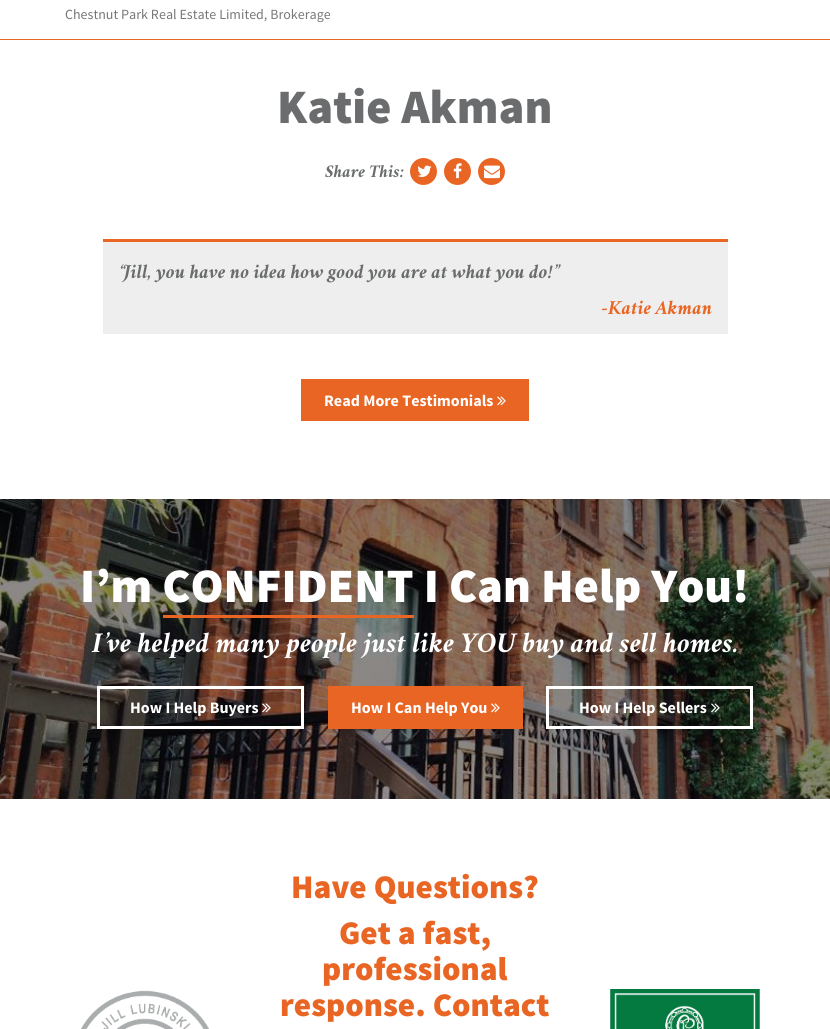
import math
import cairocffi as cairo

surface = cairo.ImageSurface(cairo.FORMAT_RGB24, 830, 1029)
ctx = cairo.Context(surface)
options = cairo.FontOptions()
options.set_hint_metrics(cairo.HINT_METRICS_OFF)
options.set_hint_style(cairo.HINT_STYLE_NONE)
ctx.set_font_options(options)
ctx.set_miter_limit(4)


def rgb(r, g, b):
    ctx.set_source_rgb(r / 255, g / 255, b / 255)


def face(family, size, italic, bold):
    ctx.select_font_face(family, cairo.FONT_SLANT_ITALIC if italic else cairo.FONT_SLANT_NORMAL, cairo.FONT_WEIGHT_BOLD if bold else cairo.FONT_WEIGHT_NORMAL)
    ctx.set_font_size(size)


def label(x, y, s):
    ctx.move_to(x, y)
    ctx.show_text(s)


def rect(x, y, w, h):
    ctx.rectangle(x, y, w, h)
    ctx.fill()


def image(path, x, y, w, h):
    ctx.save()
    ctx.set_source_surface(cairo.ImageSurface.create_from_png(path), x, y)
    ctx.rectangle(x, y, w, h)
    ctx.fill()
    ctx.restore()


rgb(255, 255, 255)
ctx.paint()
rgb(233, 101, 35)
rect(0, 39, 830, 1)
face('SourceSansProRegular', 14, 0, 0)
rgb(119, 119, 119)
label(65, 19, 'Chestnut Park Real Estate Limited, Brokerage')
face('Source Sans Pro Black', 48, 0, 0)
rgb(106, 108, 109)
label(277, 123, 'Katie Akman')
face('Crimson Text', 16, 1, 1)
label(325, 177, 'Share This:')
rgb(233, 101, 35)
ctx.new_path()
ctx.arc(423.5, 171.5, 13.5, 0, 2 * math.pi)
ctx.fill()
image('image0.png', 417, 165, 15, 12)
ctx.arc(457.5, 171.5, 13.5, 0, 2 * math.pi)
ctx.fill()
image('image1.png', 453, 163, 9, 16)
ctx.arc(491.5, 171.5, 13.5, 0, 2 * math.pi)
ctx.fill()
image('image2.png', 484, 165, 16, 14)
rgb(238, 238, 238)
rect(103, 242, 625, 92)
rgb(235, 101, 37)
rect(103, 239, 625, 3)
face('Crimson Text', 18, 1, 1)
rgb(106, 108, 109)
label(118, 278, '“Jill, you have no idea how good you are at what you do!”')
rgb(233, 101, 35)
label(601, 314, '-Katie Akman')
rect(301, 379, 228, 42)
face('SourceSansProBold', 16, 0, 1)
rgb(255, 255, 255)
label(324, 406, 'Read More Testimonials')
image('image3.png', 497, 396, 9, 10)
image('image4.png', 0, 499, 830, 300)
face('Source Sans Pro Black', 48, 0, 0)
label(80, 602, 'I’m CONFIDENT I Can Help You!')
rgb(233, 101, 36)
rect(163, 615, 251, 3)
face('Crimson Text', 26, 1, 1)
rgb(255, 255, 255)
label(92, 652, 'I’ve helped many people just like YOU buy and sell homes.')
ctx.rectangle(98.5, 687.5, 204, 40)
ctx.set_line_width(3)
ctx.stroke()
face('SourceSansProBold', 16, 0, 1)
label(130, 713, 'How I Help Buyers')
image('image5.png', 262, 703, 9, 10)
rgb(233, 101, 35)
rect(328, 686, 195, 43)
rgb(255, 255, 255)
label(351, 713, 'How I Can Help You')
image('image3.png', 491, 703, 9, 10)
ctx.rectangle(547.5, 687.5, 204, 40)
ctx.stroke()
label(579, 713, 'How I Help Sellers')
image('image6.png', 711, 703, 9, 10)
image('image7.png', 81, 990, 128, 39)
face('Source Sans Pro Black', 33, 0, 0)
rgb(233, 101, 35)
label(291, 898, 'Have Questions?')
label(339, 944, 'Get a fast,')
label(322, 980, 'professional')
label(280, 1016, 'response. Contact')
image('image8.png', 610, 989, 150, 40)
surface.write_to_png('render.png')
